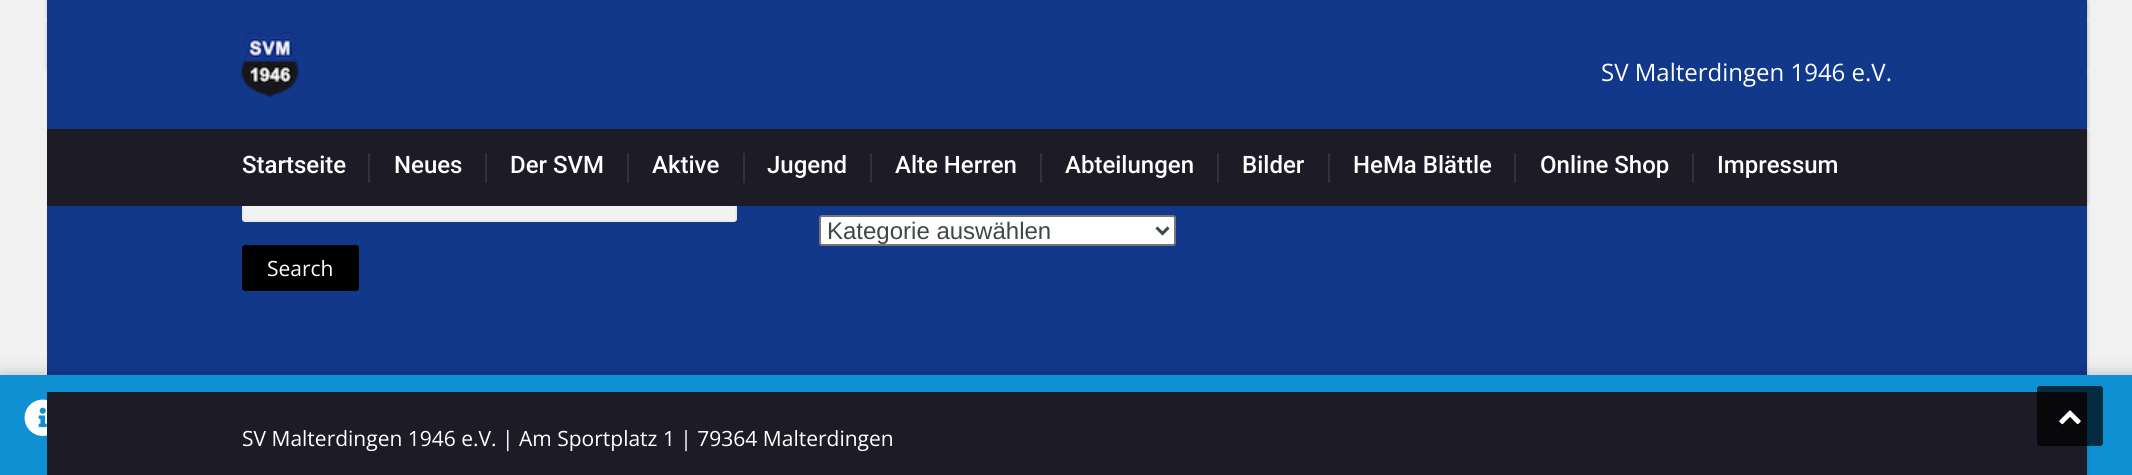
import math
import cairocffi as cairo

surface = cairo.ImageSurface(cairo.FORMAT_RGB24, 2132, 475)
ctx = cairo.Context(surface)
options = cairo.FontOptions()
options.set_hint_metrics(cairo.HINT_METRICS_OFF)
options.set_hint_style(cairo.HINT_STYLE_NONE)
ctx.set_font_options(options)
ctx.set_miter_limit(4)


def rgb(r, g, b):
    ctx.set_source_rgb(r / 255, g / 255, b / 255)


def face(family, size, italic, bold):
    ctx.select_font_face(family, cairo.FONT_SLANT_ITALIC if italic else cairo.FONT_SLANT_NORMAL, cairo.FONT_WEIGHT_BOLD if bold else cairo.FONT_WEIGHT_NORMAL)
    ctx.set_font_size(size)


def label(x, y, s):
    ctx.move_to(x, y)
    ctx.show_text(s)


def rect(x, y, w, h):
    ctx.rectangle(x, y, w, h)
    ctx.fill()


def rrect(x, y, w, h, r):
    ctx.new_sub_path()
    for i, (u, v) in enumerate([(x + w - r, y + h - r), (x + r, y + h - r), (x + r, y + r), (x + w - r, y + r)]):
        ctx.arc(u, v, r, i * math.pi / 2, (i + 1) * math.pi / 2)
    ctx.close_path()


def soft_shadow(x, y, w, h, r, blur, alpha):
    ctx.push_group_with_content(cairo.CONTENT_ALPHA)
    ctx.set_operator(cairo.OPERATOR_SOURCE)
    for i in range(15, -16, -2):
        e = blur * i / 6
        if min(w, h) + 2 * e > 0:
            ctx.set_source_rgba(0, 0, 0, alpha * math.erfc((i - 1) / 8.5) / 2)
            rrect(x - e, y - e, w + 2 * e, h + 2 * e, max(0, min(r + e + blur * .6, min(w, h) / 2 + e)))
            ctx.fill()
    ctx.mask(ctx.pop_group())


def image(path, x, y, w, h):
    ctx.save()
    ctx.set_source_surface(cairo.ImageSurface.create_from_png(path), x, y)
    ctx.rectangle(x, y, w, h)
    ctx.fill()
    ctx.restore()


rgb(241, 241, 241)
ctx.paint()
rgb(0, 0, 0)
soft_shadow(47, -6, 2, 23, 0, 2, 0.2)
soft_shadow(2085, -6, 2, 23, 0, 2, 0.2)
rgb(18, 56, 139)
rect(47, 206, 2040, 169)
rgb(242, 242, 242)
rrect(243, 151, 493, 70, 2)
ctx.fill_preserve()
rgb(234, 234, 234)
ctx.stroke()
ctx.save()
ctx.set_fill_rule(cairo.FILL_RULE_EVEN_ODD)
ctx.new_path()
ctx.move_to(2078, 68)
ctx.line_to(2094, 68)
ctx.line_to(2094, 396)
ctx.line_to(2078, 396)
ctx.close_path()
ctx.move_to(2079, 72)
ctx.line_to(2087, 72)
ctx.line_to(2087, 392)
ctx.line_to(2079, 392)
ctx.close_path()
ctx.clip()
rgb(0, 0, 0)
soft_shadow(2085, 75, 2, 314, 0, 2, 0.2)
ctx.restore()
rgb(28, 27, 38)
rect(47, 129, 2040, 77)
ctx.save()
ctx.set_fill_rule(cairo.FILL_RULE_EVEN_ODD)
ctx.new_path()
ctx.move_to(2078, 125)
ctx.line_to(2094, 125)
ctx.line_to(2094, 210)
ctx.line_to(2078, 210)
ctx.close_path()
ctx.move_to(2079, 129)
ctx.line_to(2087, 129)
ctx.line_to(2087, 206)
ctx.line_to(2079, 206)
ctx.close_path()
ctx.clip()
rgb(0, 0, 0)
soft_shadow(2085, 132, 2, 71, 0, 2, 0.2)
ctx.restore()
rgb(0, 0, 0)
soft_shadow(47, 23, 2, 46, 0, 2, 0.2)
soft_shadow(2085, 23, 2, 46, 0, 2, 0.2)
rgb(18, 56, 139)
rect(47, 0, 2040, 129)
image('image0.png', 241, 31, 58, 67)
face('Open Sans', 24, 0, 0)
rgb(255, 255, 255)
label(1601, 81, 'SV Malterdingen 1946 e.V.')
ctx.save()
ctx.set_fill_rule(cairo.FILL_RULE_EVEN_ODD)
ctx.new_path()
ctx.move_to(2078, 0)
ctx.line_to(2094, 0)
ctx.line_to(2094, 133)
ctx.line_to(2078, 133)
ctx.close_path()
ctx.move_to(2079, 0)
ctx.line_to(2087, 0)
ctx.line_to(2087, 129)
ctx.line_to(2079, 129)
ctx.close_path()
ctx.clip()
rgb(0, 0, 0)
soft_shadow(2085, 3, 2, 123, 0, 2, 0.2)
ctx.restore()
face('Roboto Medium', 24, 0, 0)
label(242, 173, 'Startseite')
rgb(51, 50, 60)
rect(368, 153, 2, 30)
rgb(255, 255, 255)
label(394, 173, 'Neues')
rgb(51, 50, 60)
rect(485, 153, 2, 30)
rgb(255, 255, 255)
label(510, 173, 'Der SVM')
rgb(51, 50, 60)
rect(627, 153, 2, 30)
rgb(255, 255, 255)
label(652, 173, 'Aktive')
rgb(51, 50, 60)
rect(743, 153, 2, 30)
rgb(255, 255, 255)
label(767, 173, 'Jugend')
rgb(51, 50, 60)
rect(870, 153, 2, 30)
rgb(255, 255, 255)
label(895, 173, 'Alte Herren')
rgb(51, 50, 60)
rect(1040, 153, 2, 30)
rgb(255, 255, 255)
label(1065, 173, 'Abteilungen')
rgb(51, 50, 60)
rect(1217, 153, 2, 30)
rgb(255, 255, 255)
label(1242, 173, 'Bilder')
rgb(51, 50, 60)
rect(1328, 153, 2, 30)
rgb(255, 255, 255)
label(1353, 173, 'HeMa Blättle')
rgb(51, 50, 60)
rect(1514, 153, 2, 30)
rgb(255, 255, 255)
label(1540, 173, 'Online Shop')
rgb(51, 50, 60)
rect(1692, 153, 2, 30)
rgb(255, 255, 255)
label(1717, 173, 'Impressum')
rrect(820, 216, 355, 29, 2)
ctx.fill_preserve()
rgb(118, 118, 118)
ctx.stroke()
ctx.new_path()
ctx.move_to(1156.5, 227.5)
ctx.line_to(1162.5, 233.5)
ctx.line_to(1168.5, 227.5)
rgb(61, 73, 66)
ctx.set_line_width(3)
ctx.stroke()
face('Liberation Sans', 24, 0, 0)
label(827, 239, 'Kategorie auswählen')
rgb(0, 0, 0)
rrect(242, 245, 117, 46, 3)
ctx.fill()
face('Open Sans', 21, 0, 0)
rgb(255, 255, 255)
label(267, 276, 'Search')
rgb(0, 0, 0)
soft_shadow(0, 381, 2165, 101, 0, 11, 0.4)
rgb(14, 144, 210)
rect(0, 375, 2132, 100)
rgb(28, 27, 38)
rect(47, 392, 2040, 83)
rgb(255, 255, 255)
label(242, 446, 'SV Malterdingen 1946 e.V. | Am Sportplatz 1 | 79364 Malterdingen')
ctx.save()
ctx.set_fill_rule(cairo.FILL_RULE_EVEN_ODD)
ctx.new_path()
ctx.move_to(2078, 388)
ctx.line_to(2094, 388)
ctx.line_to(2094, 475)
ctx.line_to(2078, 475)
ctx.close_path()
ctx.move_to(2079, 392)
ctx.line_to(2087, 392)
ctx.line_to(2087, 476)
ctx.line_to(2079, 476)
ctx.close_path()
ctx.clip()
rgb(0, 0, 0)
soft_shadow(2085, 395, 2, 78, 0, 2, 0.2)
ctx.restore()
image('image1.png', 24, 399, 23, 37)
ctx.set_source_rgba(0, 0, 0, 0.7)
rrect(2037, 386, 66, 60, 3)
ctx.fill()
image('image2.png', 2059, 410, 22, 15)
surface.write_to_png('render.png')
